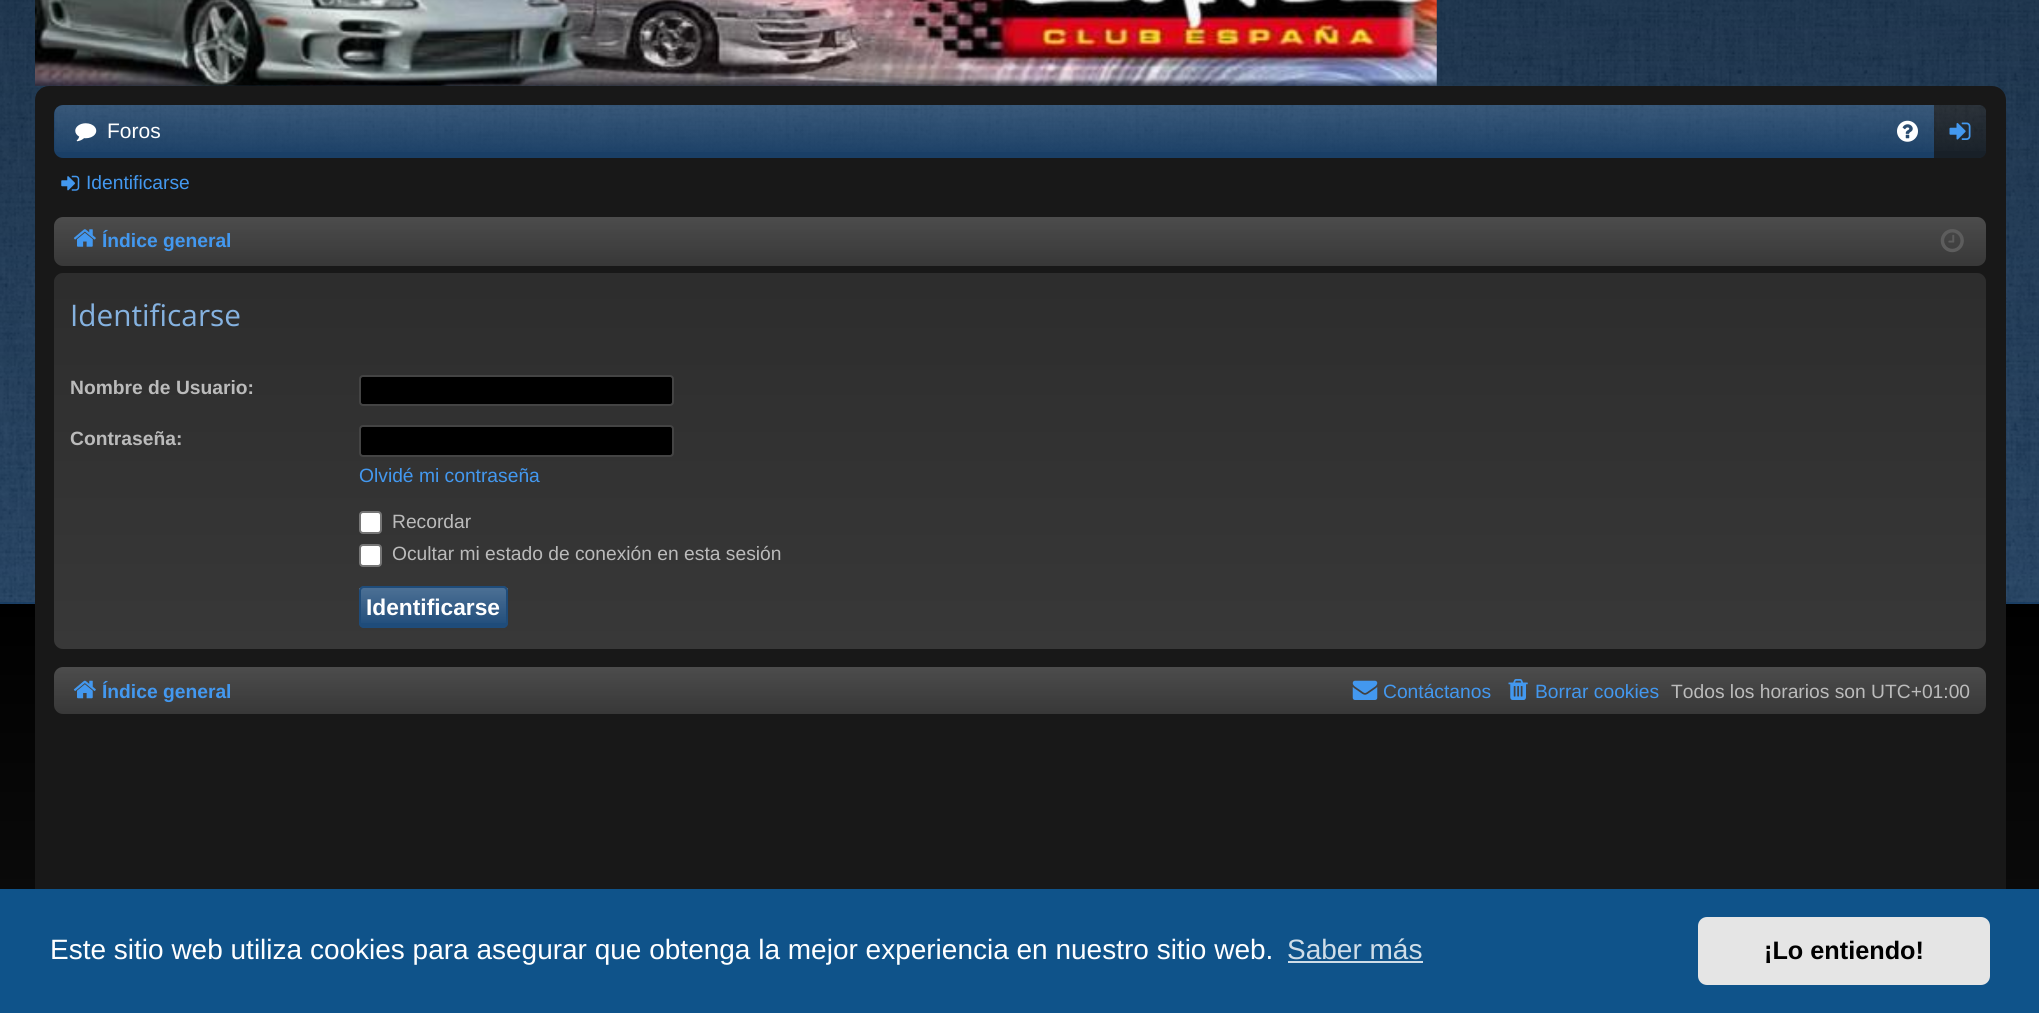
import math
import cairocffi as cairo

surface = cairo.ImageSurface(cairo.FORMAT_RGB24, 2039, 1013)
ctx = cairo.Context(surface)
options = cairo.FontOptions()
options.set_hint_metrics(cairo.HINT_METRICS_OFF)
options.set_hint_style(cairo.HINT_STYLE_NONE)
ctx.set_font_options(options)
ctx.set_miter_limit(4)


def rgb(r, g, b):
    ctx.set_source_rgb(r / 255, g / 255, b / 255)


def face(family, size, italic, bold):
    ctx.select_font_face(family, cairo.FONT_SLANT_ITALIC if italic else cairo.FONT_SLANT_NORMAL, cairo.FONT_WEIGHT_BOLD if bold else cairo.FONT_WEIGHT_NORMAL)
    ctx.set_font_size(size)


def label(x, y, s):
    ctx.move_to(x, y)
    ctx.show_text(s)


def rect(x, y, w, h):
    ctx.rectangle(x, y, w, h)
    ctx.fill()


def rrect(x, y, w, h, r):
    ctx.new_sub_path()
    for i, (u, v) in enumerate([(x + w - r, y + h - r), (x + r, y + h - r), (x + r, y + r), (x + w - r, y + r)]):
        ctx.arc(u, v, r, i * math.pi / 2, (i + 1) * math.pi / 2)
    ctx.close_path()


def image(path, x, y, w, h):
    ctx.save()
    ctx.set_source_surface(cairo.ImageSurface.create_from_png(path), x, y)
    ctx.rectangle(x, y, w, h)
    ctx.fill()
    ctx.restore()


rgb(255, 255, 255)
ctx.paint()
gradient = cairo.LinearGradient(1020, -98, 1020, 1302)
gradient.add_color_stop_rgba(0, 0, 0, 0, 1)
gradient.add_color_stop_rgba(0.5, 0, 0, 0, 1)
gradient.add_color_stop_rgba(1, 0.094, 0.094, 0.094, 1)
ctx.set_source(gradient)
rect(0, 604, 2039, 285)
rgb(26, 58, 92)
rect(0, 0, 2039, 604)
image('image0.png', 0, 0, 2039, 604)
ctx.set_source_rgba(0.063, 0.396, 0.737, 0.2)
rect(0, 602, 2039, 2)
image('image1.png', 35, 0, 1402, 86)
rgb(24, 24, 24)
rrect(36, 87, 1969, 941, 13)
ctx.fill_preserve()
ctx.stroke()
rgb(26, 63, 102)
rrect(54, 105, 1932, 53, 9)
ctx.fill()
image('image2.png', 54, 105, 1932, 47)
image('image3.png', 75, 123, 22, 19)
face('Liberation Sans', 21, 0, 0)
rgb(255, 255, 255)
label(107, 138, 'Foros')
image('image4.png', 1897, 120, 21, 22)
rgb(24, 32, 40)
ctx.new_path()
ctx.move_to(1934, 105)
ctx.line_to(1979, 105)
ctx.curve_to(1983, 105, 1986, 108, 1986, 112)
ctx.line_to(1986, 151)
ctx.curve_to(1986, 155, 1983, 158, 1979, 158)
ctx.line_to(1934, 158)
ctx.close_path()
ctx.fill()
image('image5.png', 1934, 105, 52, 46)
image('image6.png', 1949, 122, 22, 18)
image('image7.png', 61, 175, 19, 16)
face('Liberation Sans', 19.25, 0, 0)
rgb(67, 152, 239)
label(86, 189, 'Identificarse')
rgb(56, 56, 56)
rrect(54, 217, 1932, 49, 9)
ctx.fill()
gradient = cairo.LinearGradient(1020, 217, 1020, 266)
gradient.add_color_stop_rgba(0, 1, 1, 1, 0.1)
gradient.add_color_stop_rgba(1, 1, 1, 1, 0)
ctx.set_source(gradient)
rrect(54, 217, 1932, 49, 9)
ctx.fill()
image('image8.png', 73, 229, 23, 18)
face('Liberation Sans', 19.25, 0, 1)
rgb(67, 152, 239)
label(102, 247, 'Índice general')
image('image9.png', 1940, 229, 24, 24)
rgb(56, 56, 56)
rrect(54, 273, 1932, 376, 9)
ctx.fill()
gradient = cairo.LinearGradient(1020, 273, 1020, 649)
gradient.add_color_stop_rgba(0, 0, 0, 0, 0.2)
gradient.add_color_stop_rgba(1, 0, 0, 0, 0)
ctx.set_source(gradient)
rrect(54, 273, 1932, 376, 9)
ctx.fill()
face('Open Sans', 29.75, 0, 0)
rgb(133, 178, 224)
label(70, 326, 'Identificarse')
face('Liberation Sans', 19.25, 0, 1)
rgb(187, 187, 187)
label(70, 394, 'Nombre de Usuario:')
rgb(0, 0, 0)
rrect(360, 376, 313, 29, 3)
ctx.fill_preserve()
rgb(68, 68, 68)
ctx.stroke()
rgb(187, 187, 187)
label(70, 445, 'Contraseña:')
rgb(0, 0, 0)
rrect(360, 426, 313, 30, 3)
ctx.fill_preserve()
rgb(68, 68, 68)
ctx.stroke()
face('Liberation Sans', 19.25, 0, 0)
rgb(67, 152, 239)
label(359, 482, 'Olvidé mi contraseña')
rgb(255, 255, 255)
rrect(360, 512, 21, 21, 3)
ctx.fill_preserve()
rgb(118, 118, 118)
ctx.stroke()
rgb(187, 187, 187)
label(392, 528, 'Recordar')
rgb(255, 255, 255)
rrect(360, 545, 21, 21, 3)
ctx.fill_preserve()
rgb(118, 118, 118)
ctx.stroke()
rgb(187, 187, 187)
label(392, 560, 'Ocultar mi estado de conexión en esta sesión')
rgb(31, 76, 122)
rrect(359, 586, 149, 42, 5)
ctx.fill()
gradient = cairo.LinearGradient(433, 588, 433, 627)
gradient.add_color_stop_rgba(0, 1, 1, 1, 0.2)
gradient.add_color_stop_rgba(1, 1, 1, 1, 0)
ctx.set_source(gradient)
rect(359, 588, 149, 35)
rrect(360, 587, 147, 40, 4)
rgb(31, 76, 122)
ctx.stroke()
face('Liberation Sans', 22.75, 0, 1)
rgb(255, 255, 255)
label(366, 615, 'Identificarse')
rgb(56, 56, 56)
rrect(54, 667, 1932, 47, 9)
ctx.fill()
gradient = cairo.LinearGradient(1020, 667, 1020, 714)
gradient.add_color_stop_rgba(0, 1, 1, 1, 0.1)
gradient.add_color_stop_rgba(1, 1, 1, 1, 0)
ctx.set_source(gradient)
rrect(54, 667, 1932, 47, 9)
ctx.fill()
image('image10.png', 73, 680, 23, 19)
face('Liberation Sans', 19.25, 0, 1)
rgb(67, 152, 239)
label(102, 698, 'Índice general')
image('image11.png', 1352, 680, 26, 20)
face('Liberation Sans', 19.25, 0, 0)
label(1383, 698, 'Contáctanos')
image('image12.png', 1508, 679, 20, 21)
label(1535, 698, 'Borrar cookies')
rgb(187, 187, 187)
label(1671, 698, 'Todos los horarios son UTC+01:00')
rgb(15, 83, 138)
rect(0, 889, 2039, 124)
face('Liberation Sans', 28, 0, 0)
rgb(255, 255, 255)
label(50, 959, 'Este sitio web utiliza cookies para asegurar que obtenga la mejor experiencia en nuestro sitio web.')
rgb(207, 221, 232)
label(1287, 959, 'Saber más')
rect(1288, 961, 135, 2)
rgb(229, 229, 229)
rrect(1698, 917, 292, 68, 9)
ctx.fill()
face('Liberation Sans', 25.25, 0, 1)
rgb(0, 0, 0)
label(1764, 959, '¡Lo entiendo!')
surface.write_to_png('render.png')
